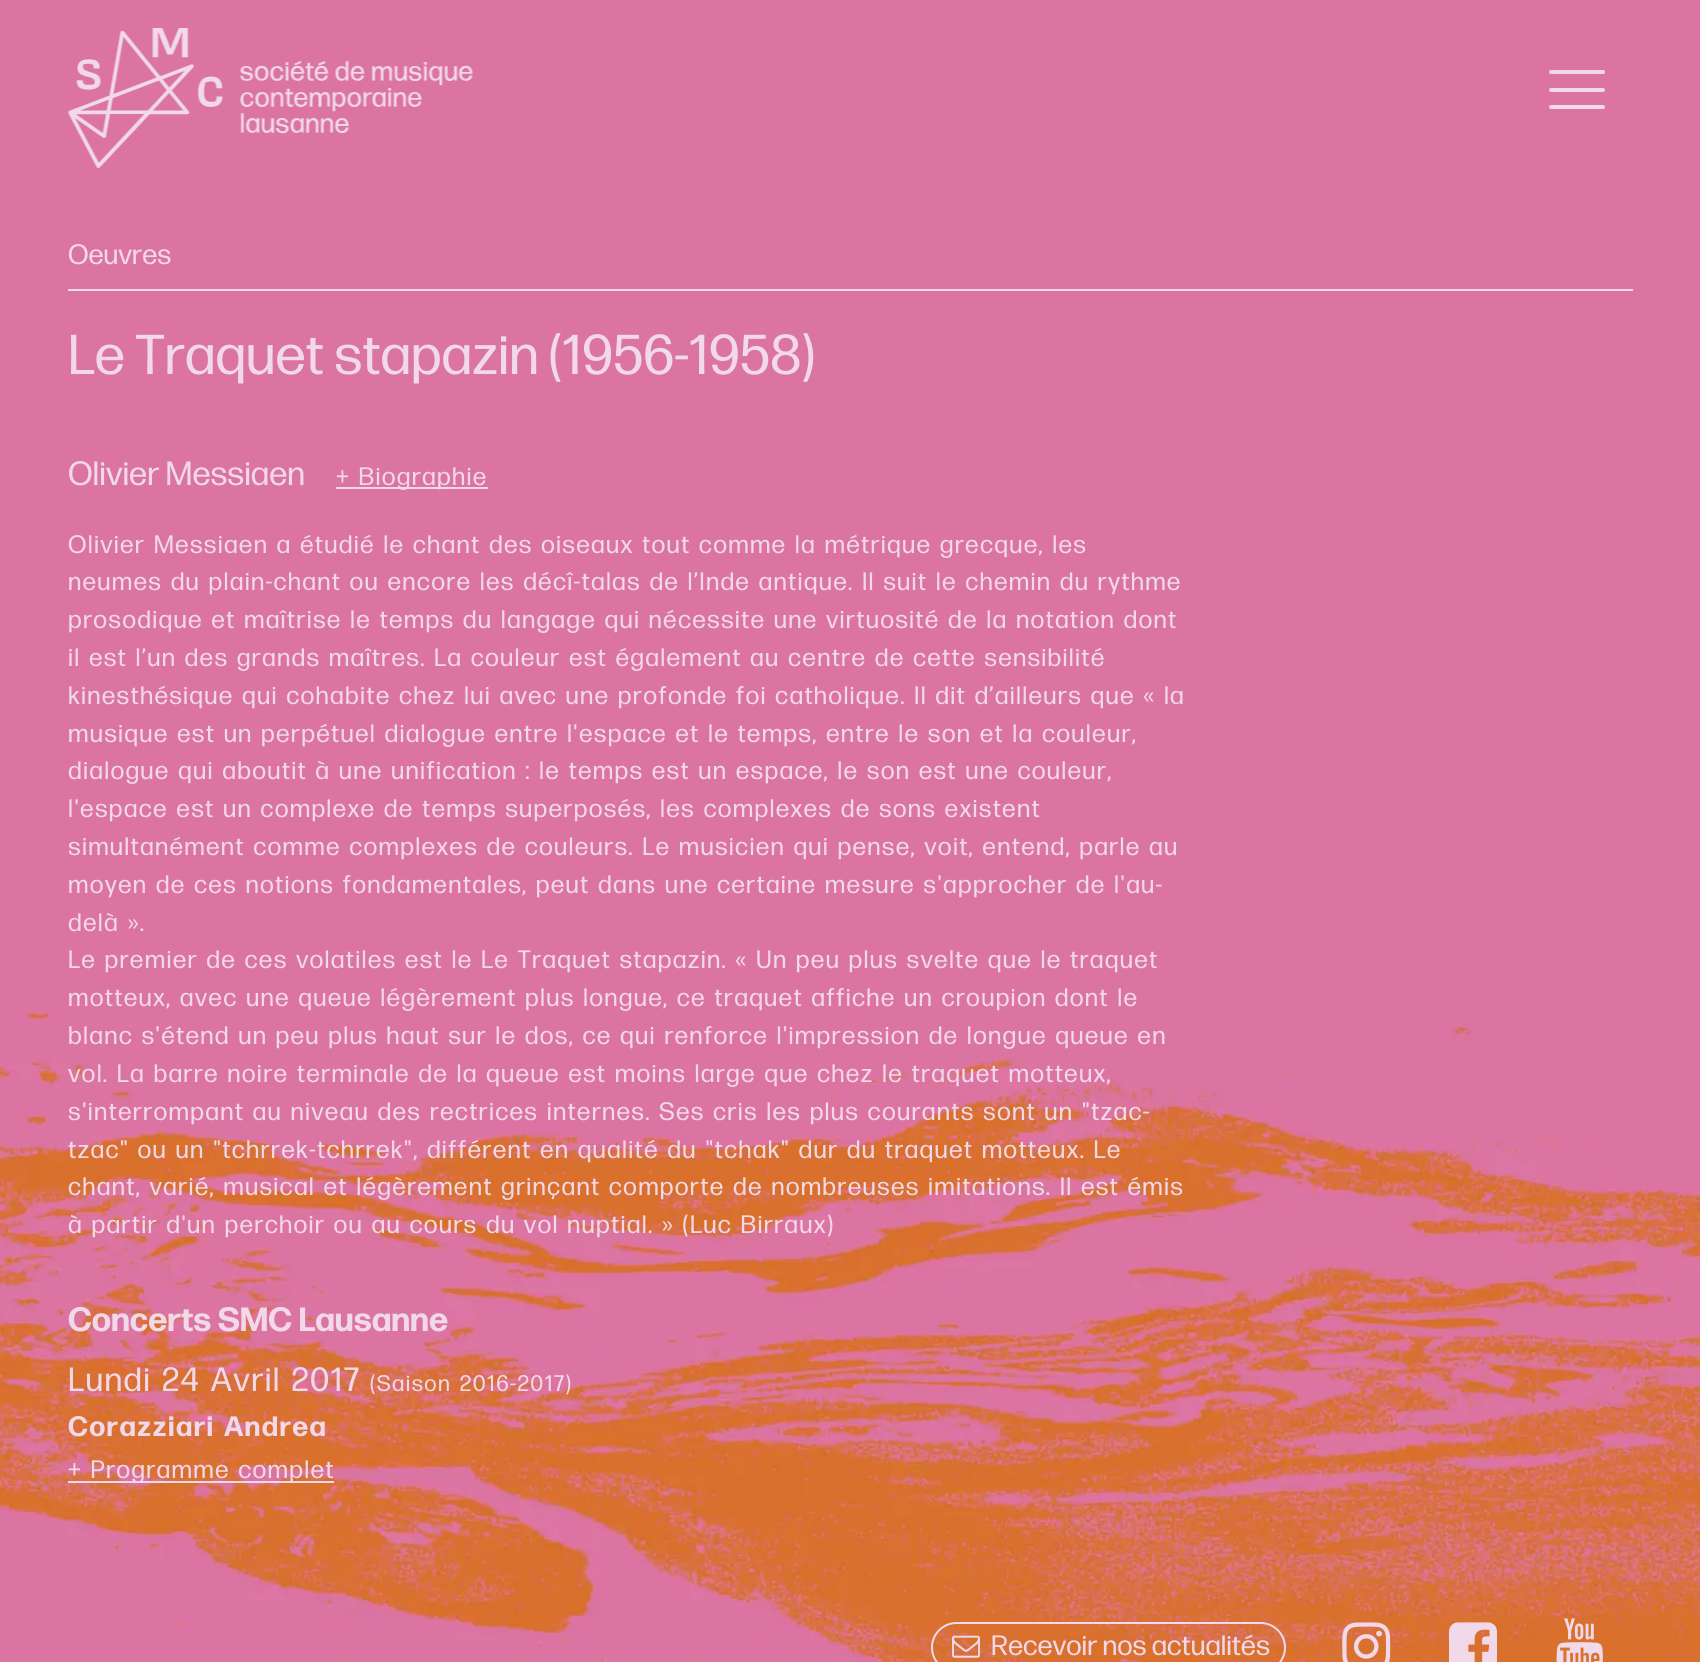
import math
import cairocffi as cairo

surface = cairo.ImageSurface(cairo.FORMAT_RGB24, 1700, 1662)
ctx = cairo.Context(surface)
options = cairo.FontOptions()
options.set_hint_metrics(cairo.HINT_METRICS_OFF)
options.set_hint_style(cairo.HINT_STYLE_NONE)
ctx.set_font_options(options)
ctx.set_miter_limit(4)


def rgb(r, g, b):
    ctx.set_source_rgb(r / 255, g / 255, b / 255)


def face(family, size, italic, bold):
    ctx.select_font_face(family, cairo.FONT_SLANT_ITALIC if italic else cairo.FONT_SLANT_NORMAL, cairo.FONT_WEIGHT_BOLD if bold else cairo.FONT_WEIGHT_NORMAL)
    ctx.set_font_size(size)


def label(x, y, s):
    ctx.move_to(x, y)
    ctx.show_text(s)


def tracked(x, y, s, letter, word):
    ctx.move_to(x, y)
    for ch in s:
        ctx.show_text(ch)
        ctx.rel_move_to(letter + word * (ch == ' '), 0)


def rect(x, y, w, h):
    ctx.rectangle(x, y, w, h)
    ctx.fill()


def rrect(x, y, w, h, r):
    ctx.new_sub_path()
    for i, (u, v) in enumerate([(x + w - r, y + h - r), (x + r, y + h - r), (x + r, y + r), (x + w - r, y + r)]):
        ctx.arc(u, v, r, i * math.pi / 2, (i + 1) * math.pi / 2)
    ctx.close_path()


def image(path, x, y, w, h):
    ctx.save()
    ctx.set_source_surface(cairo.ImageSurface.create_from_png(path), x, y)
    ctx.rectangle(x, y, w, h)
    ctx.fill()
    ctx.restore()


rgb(219, 116, 163)
ctx.paint()
image('image0.png', 0, 1008, 1700, 654)
image('image1.png', 68, 28, 405, 140)
rgb(241, 217, 233)
rrect(1549, 88, 56, 4, 2)
ctx.fill()
rrect(1549, 70, 56, 4, 2)
ctx.fill()
rrect(1549, 105, 56, 4, 2)
ctx.fill()
face('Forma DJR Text', 28, 0, 0)
label(68, 264, 'Oeuvres')
rect(68, 289, 1565, 2)
face('Forma DJR Text', 56, 0, 0)
label(68, 374, 'Le Traquet stapazin (1956-1958)')
face('Forma DJR Text', 33.6, 0, 0)
label(68, 485, 'Olivier Messiaen')
rect(336, 487, 152, 2)
face('Forma DJR Text', 25.2, 0, 0)
tracked(336, 485, '+ Biographie', 1.25, 2.5)
tracked(68, 553, 'Olivier Messiaen a étudié le chant des oiseaux tout comme la métrique grecque, les', 1.25, 2.5)
tracked(68, 590, 'neumes du plain-chant ou encore les décî-talas de l’Inde antique. Il suit le chemin du rythme', 1.25, 2.5)
tracked(68, 628, 'prosodique et maîtrise le temps du langage qui nécessite une virtuosité de la notation dont', 1.25, 2.5)
tracked(68, 666, 'il est l’un des grands maîtres. La couleur est également au centre de cette sensibilité', 1.25, 2.5)
tracked(68, 704, 'kinesthésique qui cohabite chez lui avec une profonde foi catholique. Il dit d’ailleurs que « la', 1.25, 2.5)
tracked(68, 742, 'musique est un perpétuel dialogue entre l\'espace et le temps, entre le son et la couleur,', 1.25, 2.5)
tracked(68, 779, 'dialogue qui aboutit à une unification : le temps est un espace, le son est une couleur,', 1.25, 2.5)
tracked(68, 817, 'l\'espace est un complexe de temps superposés, les complexes de sons existent', 1.25, 2.5)
tracked(68, 855, 'simultanément comme complexes de couleurs. Le musicien qui pense, voit, entend, parle au', 1.25, 2.5)
tracked(68, 893, 'moyen de ces notions fondamentales, peut dans une certaine mesure s\'approcher de l\'au-', 1.25, 2.5)
tracked(68, 931, 'delà ».', 1.25, 2.5)
tracked(68, 968, 'Le premier de ces volatiles est le Le Traquet stapazin. « Un peu plus svelte que le traquet', 1.25, 2.5)
tracked(68, 1006, 'motteux, avec une queue légèrement plus longue, ce traquet affiche un croupion dont le', 1.25, 2.5)
tracked(68, 1044, 'blanc s\'étend un peu plus haut sur le dos, ce qui renforce l\'impression de longue queue en', 1.25, 2.5)
tracked(68, 1082, 'vol. La barre noire terminale de la queue est moins large que chez le traquet motteux,', 1.25, 2.5)
tracked(68, 1120, 's\'interrompant au niveau des rectrices internes. Ses cris les plus courants sont un "tzac-', 1.25, 2.5)
tracked(68, 1158, 'tzac" ou un "tchrrek-tchrrek", différent en qualité du "tchak" dur du traquet motteux. Le', 1.25, 2.5)
tracked(68, 1195, 'chant, varié, musical et légèrement grinçant comporte de nombreuses imitations. Il est émis', 1.25, 2.5)
tracked(68, 1233, 'à partir d\'un perchoir ou au cours du vol nuptial. » (Luc Birraux)', 1.25, 2.5)
face('Forma DJR Text', 33.6, 0, 1)
label(68, 1331, 'Concerts SMC Lausanne')
face('Forma DJR Text', 33.6, 0, 0)
tracked(68, 1391, 'Lundi 24 Avril 2017', 1.4, 3)
face('Forma DJR Text', 22.5, 0, 0)
tracked(370, 1391, '(Saison 2016-2017)', 1.4, 3)
face('Forma DJR Text', 28, 0, 1)
tracked(68, 1436, 'Corazziari Andrea', 1.4, 3)
rect(68, 1481, 266, 2)
face('Forma DJR Text', 25.2, 0, 0)
tracked(68, 1478, '+ Programme complet', 1.25, 2.5)
rrect(932, 1623, 353, 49, 24.5)
ctx.stroke()
image('image2.png', 952, 1635, 28, 23)
face('Forma DJR Text', 28, 0, 0)
label(991, 1655, 'Recevoir nos actualités')
image('image3.png', 1342, 1622, 49, 40)
image('image4.png', 1449, 1622, 48, 40)
image('image5.png', 1556, 1618, 47, 44)
surface.write_to_png('render.png')
